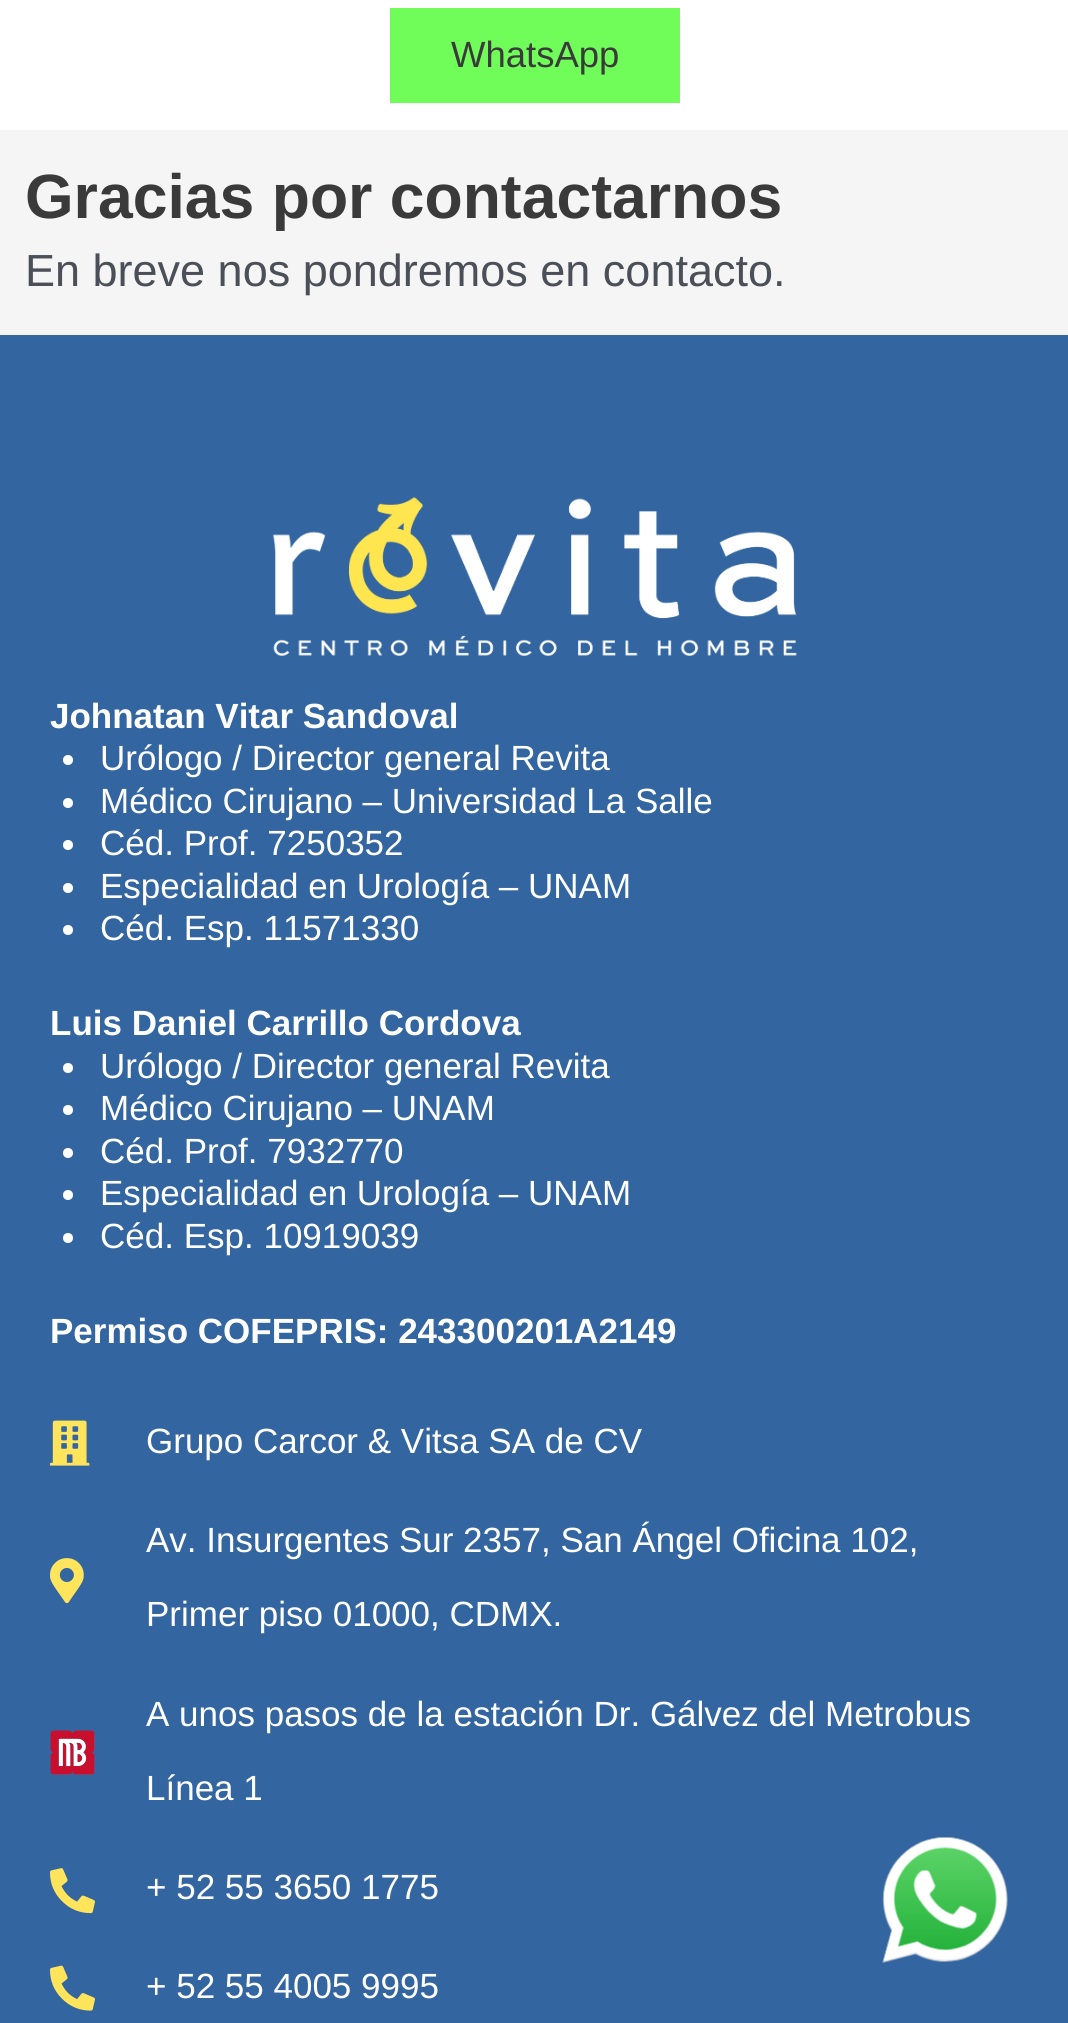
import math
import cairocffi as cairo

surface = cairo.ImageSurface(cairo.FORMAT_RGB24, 1068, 2023)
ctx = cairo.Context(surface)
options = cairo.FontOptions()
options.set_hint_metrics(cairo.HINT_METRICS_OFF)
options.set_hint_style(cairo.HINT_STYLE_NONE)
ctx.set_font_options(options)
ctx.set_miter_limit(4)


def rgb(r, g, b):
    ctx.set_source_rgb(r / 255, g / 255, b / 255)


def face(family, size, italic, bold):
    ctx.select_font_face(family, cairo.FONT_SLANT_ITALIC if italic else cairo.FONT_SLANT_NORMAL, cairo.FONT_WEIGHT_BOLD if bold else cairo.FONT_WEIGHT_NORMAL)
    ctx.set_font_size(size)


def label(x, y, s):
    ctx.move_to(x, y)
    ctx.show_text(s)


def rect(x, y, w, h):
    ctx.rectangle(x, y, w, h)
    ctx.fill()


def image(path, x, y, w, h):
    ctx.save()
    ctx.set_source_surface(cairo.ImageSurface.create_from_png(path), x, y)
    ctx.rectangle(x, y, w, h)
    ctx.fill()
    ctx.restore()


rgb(245, 245, 245)
ctx.paint()
rgb(255, 255, 255)
rect(0, 0, 1068, 130)
rgb(112, 253, 90)
rect(390, 8, 290, 95)
face('Liberation Sans', 36.5, 0, 0)
rgb(58, 58, 58)
label(451, 67, 'WhatsApp')
face('Liberation Sans', 62.5, 0, 1)
label(25, 218, 'Gracias por contactarnos')
face('Liberation Sans', 45, 0, 0)
rgb(75, 79, 88)
label(25, 286, 'En breve nos pondremos en contacto.')
rgb(51, 101, 160)
rect(0, 335, 1068, 1688)
image('image0.png', 272, 497, 525, 159)
face('Liberation Sans', 35, 0, 1)
rgb(255, 255, 255)
label(50, 728, 'Johnatan Vitar Sandoval')
ctx.new_path()
ctx.arc(68, 760, 5, 0, 2 * math.pi)
ctx.fill()
face('Liberation Sans', 35, 0, 0)
label(100, 770, 'Urólogo / Director general Revita')
ctx.new_path()
ctx.arc(68, 803, 5, 0, 2 * math.pi)
ctx.fill()
label(100, 813, 'Médico Cirujano – Universidad La Salle')
ctx.new_path()
ctx.arc(68, 845, 5, 0, 2 * math.pi)
ctx.fill()
label(100, 855, 'Céd. Prof. 7250352')
ctx.new_path()
ctx.arc(68, 888, 5, 0, 2 * math.pi)
ctx.fill()
label(100, 898, 'Especialidad en Urología – UNAM')
ctx.new_path()
ctx.arc(68, 930, 5, 0, 2 * math.pi)
ctx.fill()
label(100, 940, 'Céd. Esp. 11571330')
face('Liberation Sans', 35, 0, 1)
label(50, 1035, 'Luis Daniel Carrillo Cordova')
ctx.new_path()
ctx.arc(68, 1068, 5, 0, 2 * math.pi)
ctx.fill()
face('Liberation Sans', 35, 0, 0)
label(100, 1078, 'Urólogo / Director general Revita')
ctx.new_path()
ctx.arc(68, 1110, 5, 0, 2 * math.pi)
ctx.fill()
label(100, 1120, 'Médico Cirujano – UNAM')
ctx.new_path()
ctx.arc(68, 1153, 5, 0, 2 * math.pi)
ctx.fill()
label(100, 1163, 'Céd. Prof. 7932770')
ctx.new_path()
ctx.arc(68, 1195, 5, 0, 2 * math.pi)
ctx.fill()
label(100, 1205, 'Especialidad en Urología – UNAM')
ctx.new_path()
ctx.arc(68, 1238, 5, 0, 2 * math.pi)
ctx.fill()
label(100, 1248, 'Céd. Esp. 10919039')
face('Liberation Sans', 35, 0, 1)
label(50, 1343, 'Permiso COFEPRIS: 243300201A2149')
image('image1.png', 50, 1420, 40, 46)
face('Liberation Sans', 35, 0, 0)
label(146, 1453, 'Grupo Carcor & Vitsa SA de CV')
image('image2.png', 50, 1558, 34, 46)
label(146, 1552, 'Av. Insurgentes Sur 2357, San Ángel Oficina 102,')
label(146, 1626, 'Primer piso 01000, CDMX.')
image('image3.png', 50, 1730, 45, 45)
label(146, 1726, 'A unos pasos de la estación Dr. Gálvez del Metrobus')
label(146, 1800, 'Línea 1')
image('image4.png', 50, 1868, 45, 46)
label(146, 1899, '+ 52 55 3650 1775')
image('image5.png', 50, 1965, 45, 46)
label(146, 1998, '+ 52 55 4005 9995')
image('image6.png', 882, 1837, 126, 126)
surface.write_to_png('render.png')
